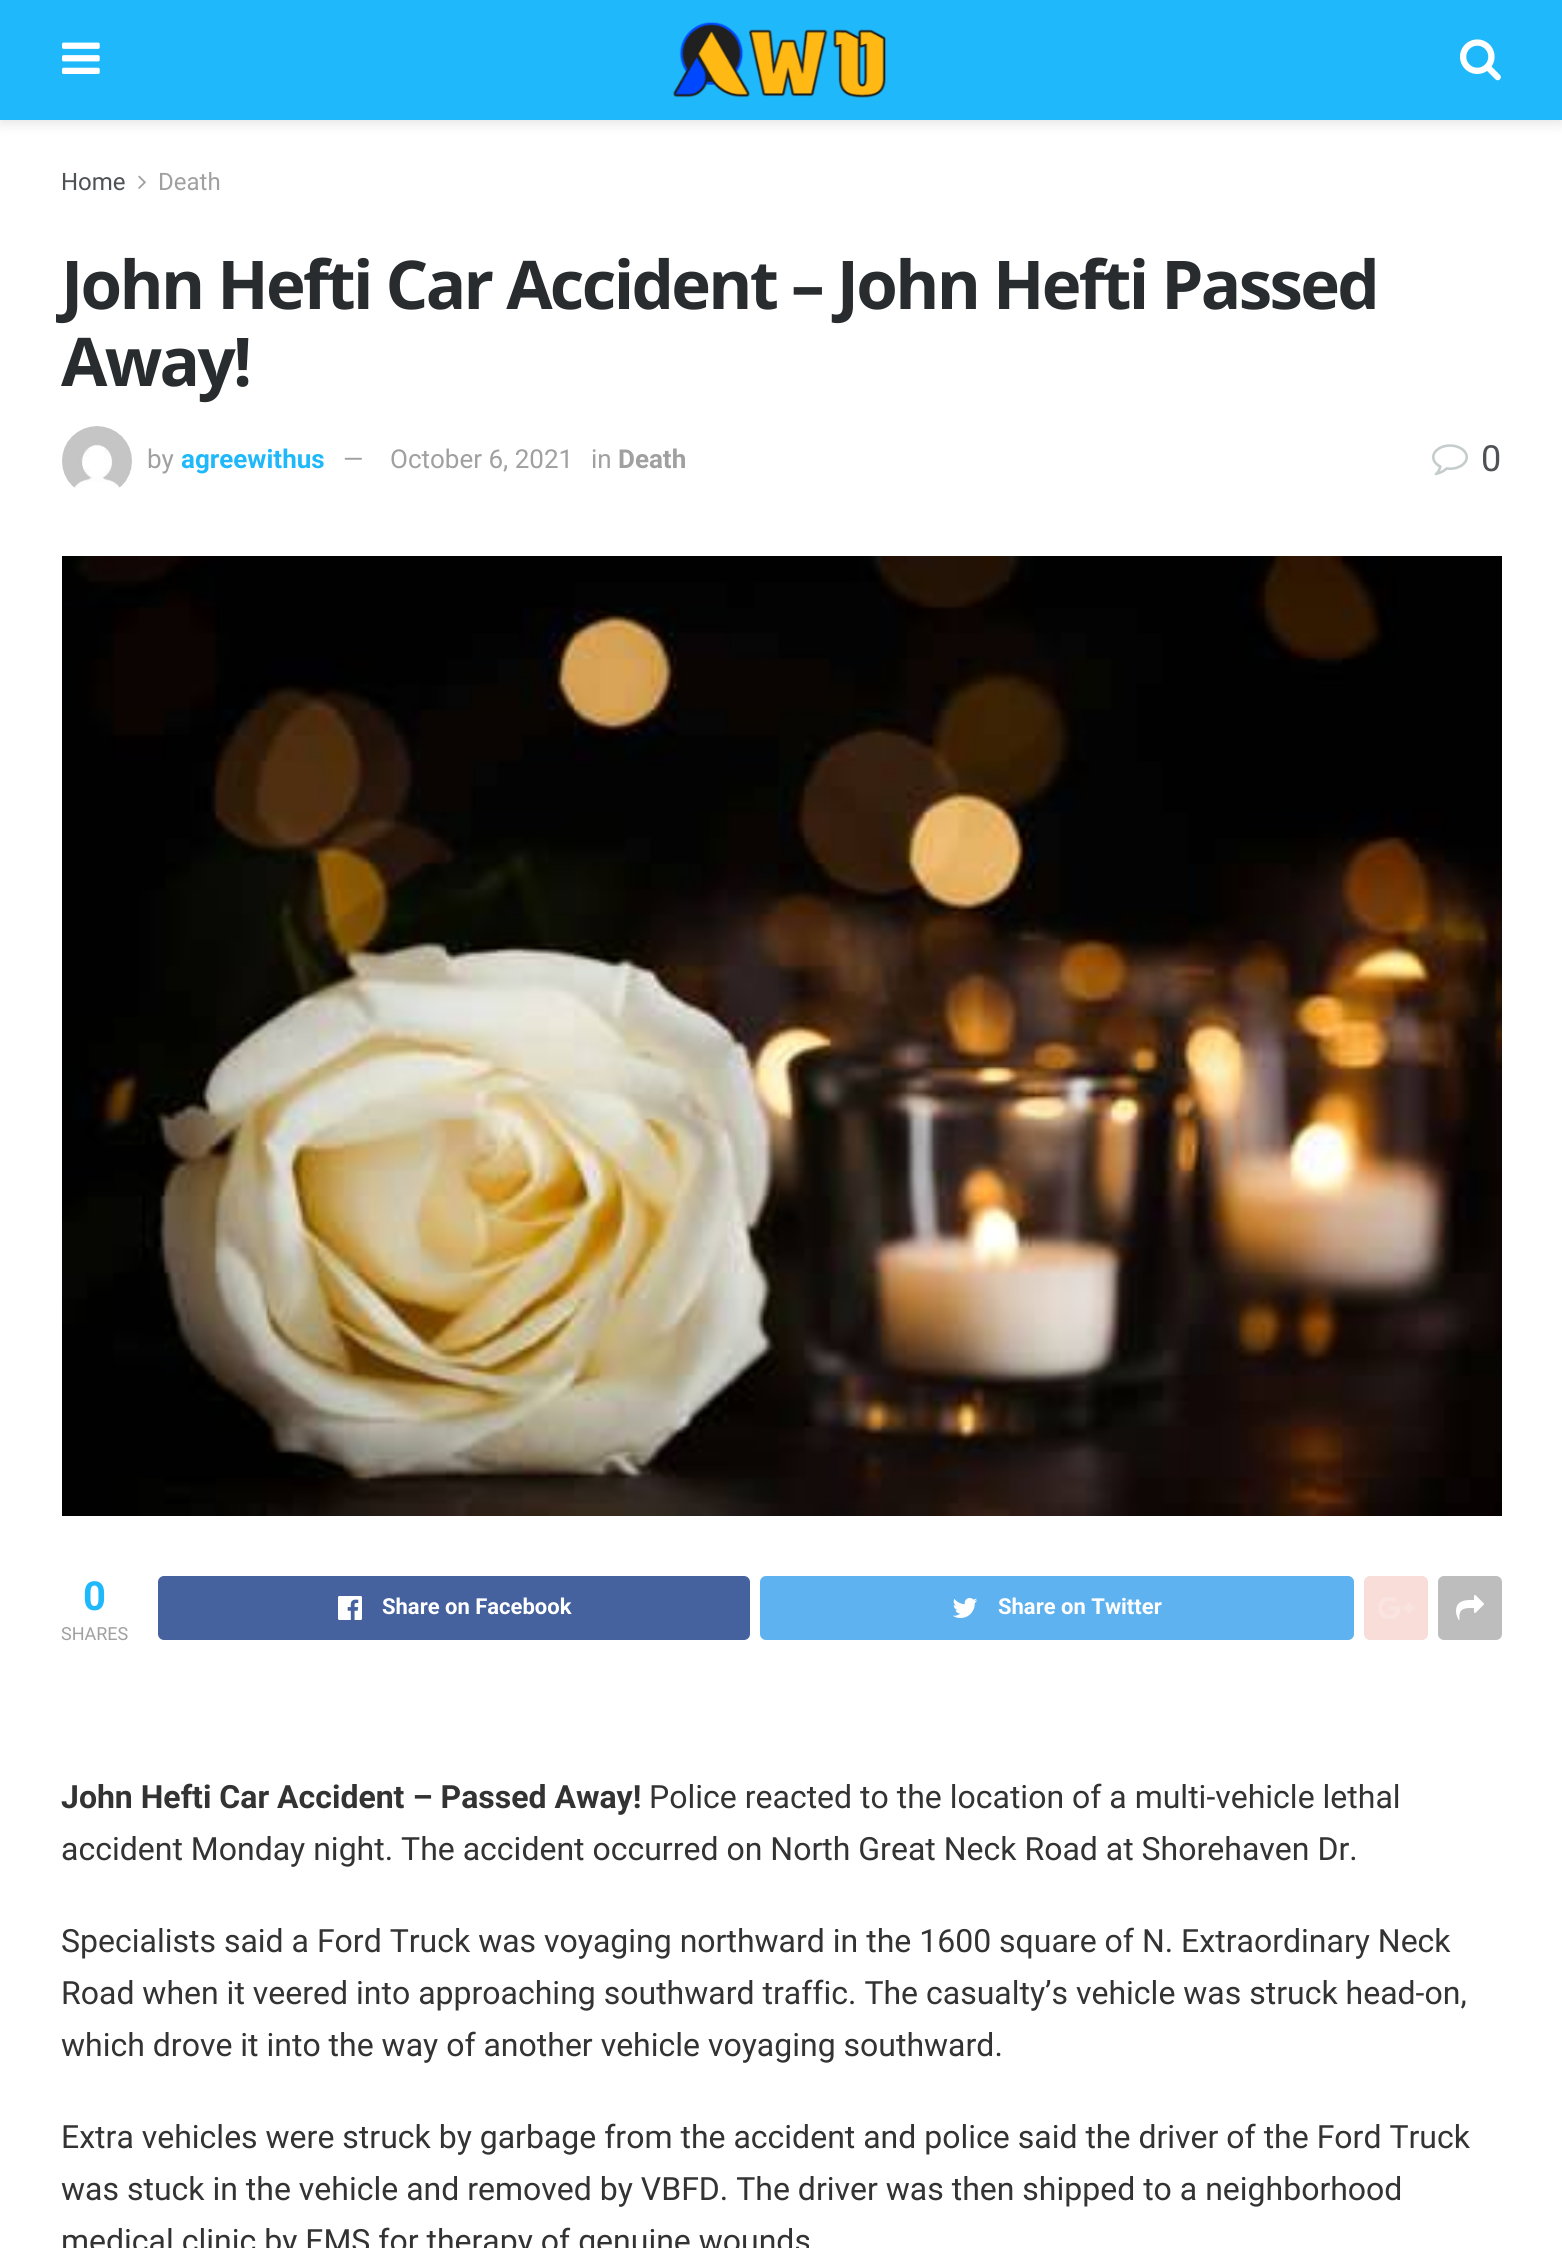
import math
import cairocffi as cairo

surface = cairo.ImageSurface(cairo.FORMAT_RGB24, 1562, 2248)
ctx = cairo.Context(surface)
options = cairo.FontOptions()
options.set_hint_metrics(cairo.HINT_METRICS_OFF)
options.set_hint_style(cairo.HINT_STYLE_NONE)
ctx.set_font_options(options)
ctx.set_miter_limit(4)


def rgb(r, g, b):
    ctx.set_source_rgb(r / 255, g / 255, b / 255)


def face(family, size, italic, bold):
    ctx.select_font_face(family, cairo.FONT_SLANT_ITALIC if italic else cairo.FONT_SLANT_NORMAL, cairo.FONT_WEIGHT_BOLD if bold else cairo.FONT_WEIGHT_NORMAL)
    ctx.set_font_size(size)


def label(x, y, s):
    ctx.move_to(x, y)
    ctx.show_text(s)


def tracked(x, y, s, letter, word):
    ctx.move_to(x, y)
    for ch in s:
        ctx.show_text(ch)
        ctx.rel_move_to(letter + word * (ch == ' '), 0)


def rect(x, y, w, h):
    ctx.rectangle(x, y, w, h)
    ctx.fill()


def rrect(x, y, w, h, r):
    ctx.new_sub_path()
    for i, (u, v) in enumerate([(x + w - r, y + h - r), (x + r, y + h - r), (x + r, y + r), (x + w - r, y + r)]):
        ctx.arc(u, v, r, i * math.pi / 2, (i + 1) * math.pi / 2)
    ctx.close_path()


def soft_shadow(x, y, w, h, r, blur, alpha):
    ctx.push_group_with_content(cairo.CONTENT_ALPHA)
    ctx.set_operator(cairo.OPERATOR_SOURCE)
    for i in range(15, -16, -2):
        e = blur * i / 6
        if min(w, h) + 2 * e > 0:
            ctx.set_source_rgba(0, 0, 0, alpha * math.erfc((i - 1) / 8.5) / 2)
            rrect(x - e, y - e, w + 2 * e, h + 2 * e, max(0, min(r + e + blur * .6, min(w, h) / 2 + e)))
            ctx.fill()
    ctx.mask(ctx.pop_group())


def image(path, x, y, w, h):
    ctx.save()
    ctx.set_source_surface(cairo.ImageSurface.create_from_png(path), x, y)
    ctx.rectangle(x, y, w, h)
    ctx.fill()
    ctx.restore()


rgb(255, 255, 255)
ctx.paint()
rgb(0, 0, 0)
soft_shadow(0, 4, 1562, 120, 0, 6, 0.1)
rgb(31, 185, 251)
rect(0, 0, 1562, 120)
image('image0.png', 62, 42, 38, 32)
image('image1.png', 673, 22, 213, 76)
image('image2.png', 1460, 39, 41, 42)
face('Roboto', 24, 0, 0)
rgb(79, 82, 84)
label(61, 190, 'Home')
image('image3.png', 138, 175, 8, 14)
rgb(160, 160, 160)
label(158, 190, 'Death')
face('Open Sans', 67.25, 0, 1)
rgb(40, 44, 46)
tracked(61, 309, 'John Hefti Car Accident – John Hefti Passed', -2.7, 0)
tracked(61, 386, 'Away!', -2.7, 0)
image('image4.png', 62, 426, 70, 62)
face('Roboto', 26, 0, 0)
rgb(160, 160, 160)
label(147, 468, 'by')
face('Roboto', 26, 0, 1)
rgb(31, 185, 251)
label(181, 468, 'agreewithus')
face('Roboto', 26, 0, 0)
rgb(160, 160, 160)
label(343, 468, '—')
label(390, 468, 'October 6, 2021')
label(591, 468, 'in')
face('Roboto', 26, 0, 1)
label(618, 468, 'Death')
image('image5.png', 1432, 444, 36, 32)
face('Roboto', 36, 0, 0)
rgb(79, 82, 84)
label(1481, 471, '0')
image('image6.png', 62, 556, 1440, 960)
face('Roboto', 40, 0, 1)
rgb(31, 185, 251)
label(83, 1610, '0')
face('Roboto', 18, 0, 0)
rgb(160, 160, 160)
label(61, 1640, 'SHARES')
rgb(69, 98, 159)
rrect(158, 1576, 592, 64, 6)
ctx.fill()
image('image7.png', 338, 1596, 24, 24)
face('Roboto', 22, 0, 1)
rgb(255, 255, 255)
label(382, 1614, 'Share on Facebook')
rgb(94, 178, 239)
rrect(760, 1576, 594, 64, 6)
ctx.fill()
image('image8.png', 952, 1598, 26, 20)
rgb(255, 255, 255)
label(998, 1614, 'Share on Twitter')
rgb(249, 221, 217)
rrect(1364, 1576, 64, 64, 6)
ctx.fill()
image('image9.png', 1378, 1597, 36, 22)
rgb(189, 189, 189)
rrect(1438, 1576, 64, 64, 6)
ctx.fill()
image('image10.png', 1456, 1595, 28, 25)
face('Roboto', 32, 0, 1)
rgb(51, 51, 51)
label(61, 1808, 'John Hefti Car Accident – Passed Away!')
face('Roboto', 32, 0, 0)
label(649, 1808, 'Police reacted to the location of a multi-vehicle lethal')
label(61, 1860, 'accident Monday night. The accident occurred on North Great Neck Road at Shorehaven Dr.')
label(61, 1952, 'Specialists said a Ford Truck was voyaging northward in the 1600 square of N. Extraordinary Neck')
label(61, 2004, 'Road when it veered into approaching southward traffic. The casualty’s vehicle was struck head-on,')
label(61, 2056, 'which drove it into the way of another vehicle voyaging southward.')
label(61, 2148, 'Extra vehicles were struck by garbage from the accident and police said the driver of the Ford Truck')
label(61, 2200, 'was stuck in the vehicle and removed by VBFD. The driver was then shipped to a neighborhood')
label(61, 2252, 'medical clinic by EMS for therapy of genuine wounds')
surface.write_to_png('render.png')
